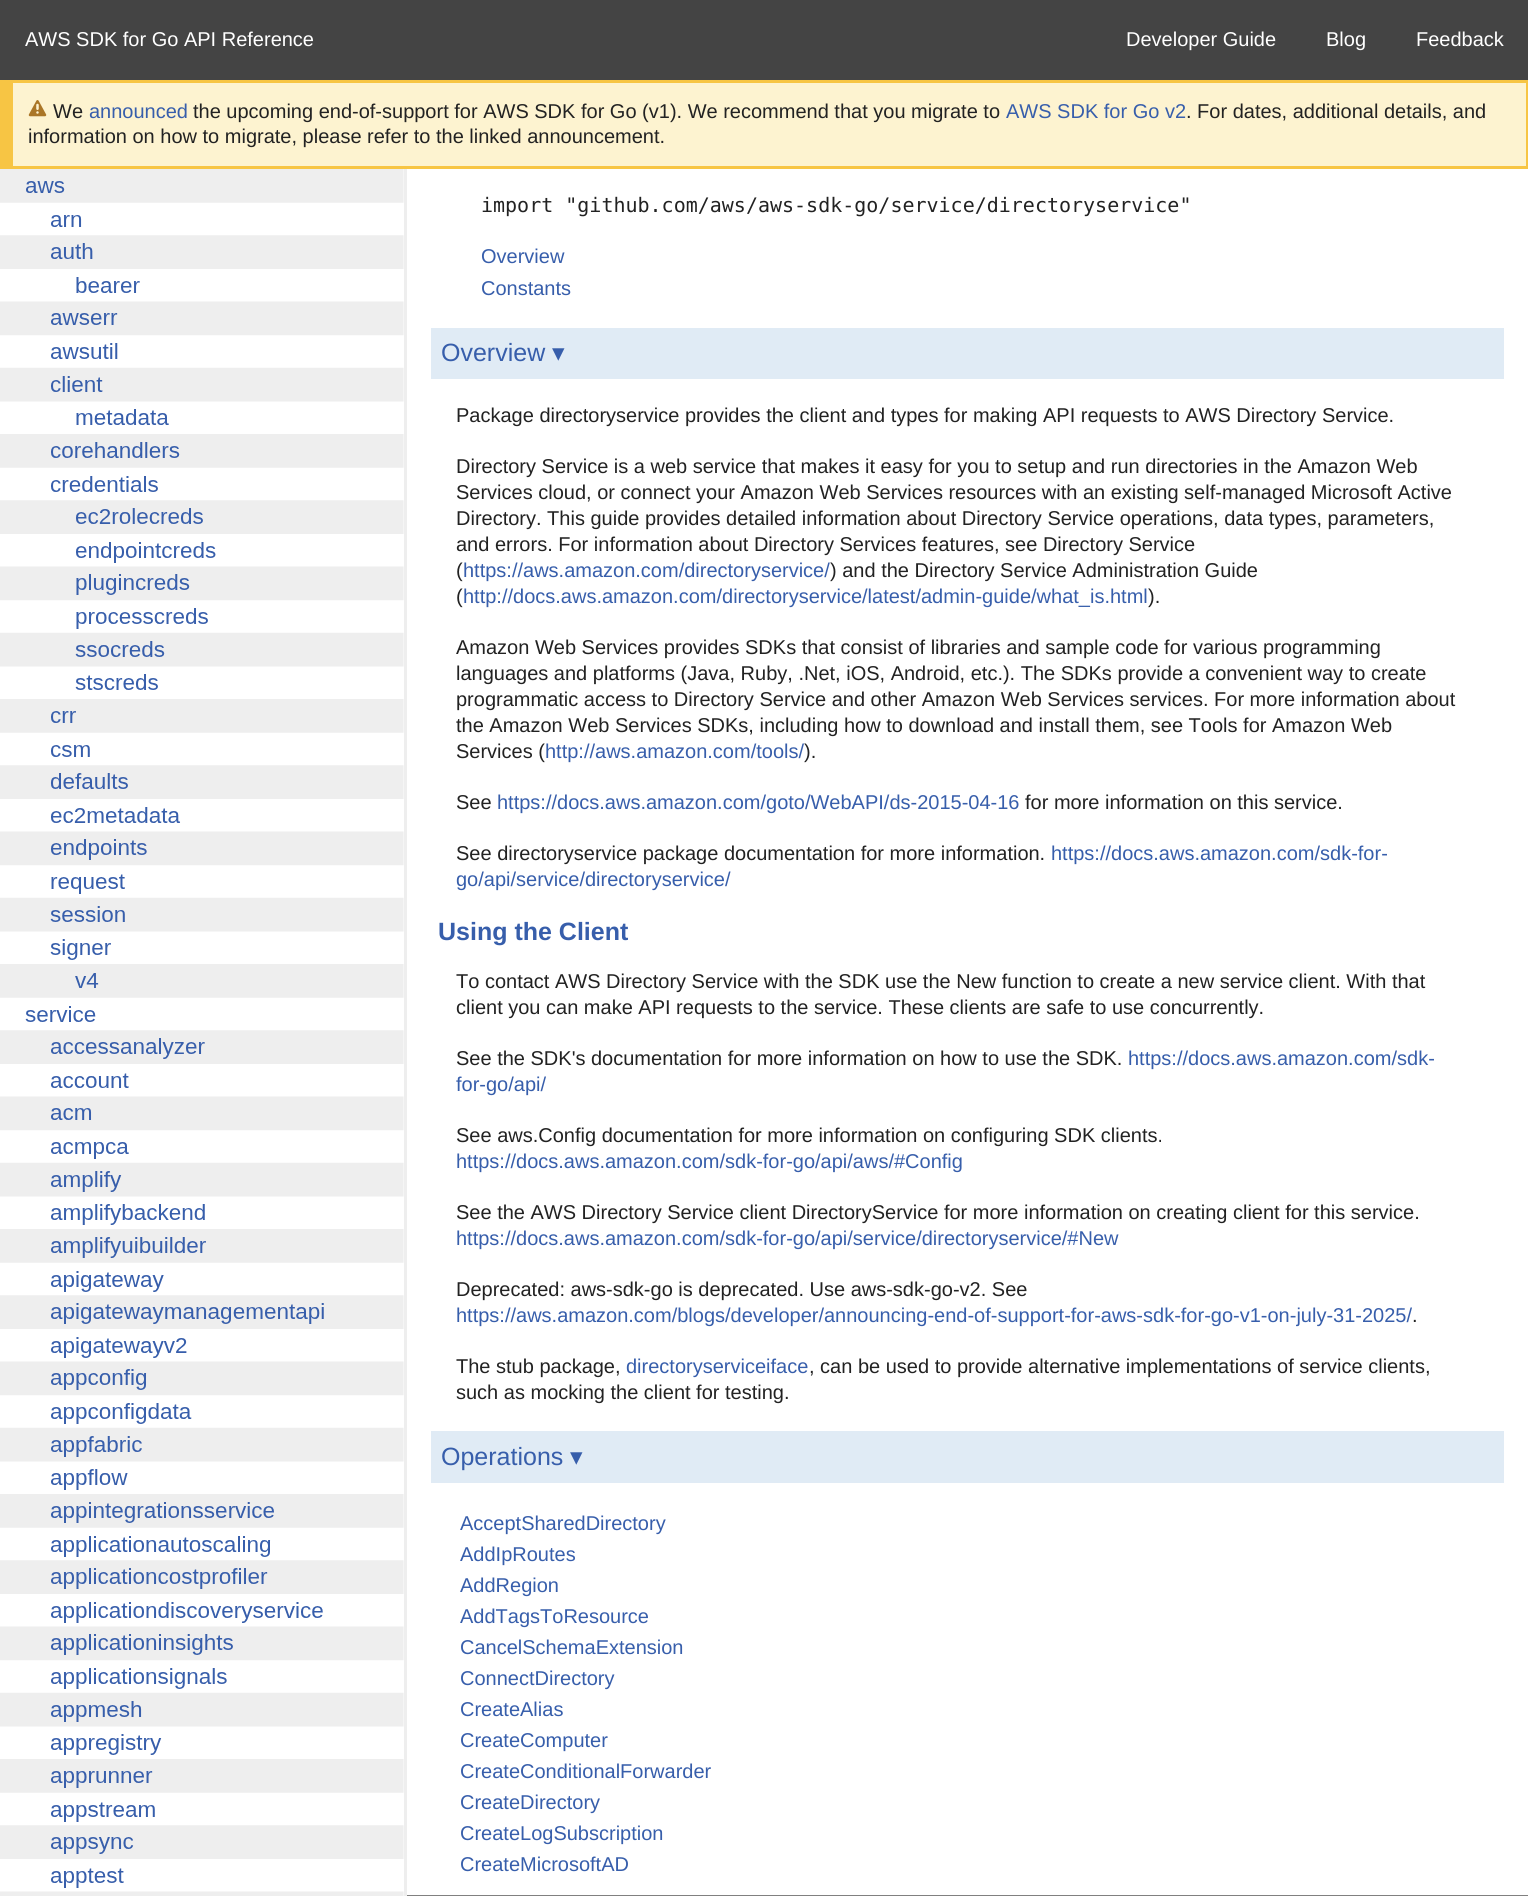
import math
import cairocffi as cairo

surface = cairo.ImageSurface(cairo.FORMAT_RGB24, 1528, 1896)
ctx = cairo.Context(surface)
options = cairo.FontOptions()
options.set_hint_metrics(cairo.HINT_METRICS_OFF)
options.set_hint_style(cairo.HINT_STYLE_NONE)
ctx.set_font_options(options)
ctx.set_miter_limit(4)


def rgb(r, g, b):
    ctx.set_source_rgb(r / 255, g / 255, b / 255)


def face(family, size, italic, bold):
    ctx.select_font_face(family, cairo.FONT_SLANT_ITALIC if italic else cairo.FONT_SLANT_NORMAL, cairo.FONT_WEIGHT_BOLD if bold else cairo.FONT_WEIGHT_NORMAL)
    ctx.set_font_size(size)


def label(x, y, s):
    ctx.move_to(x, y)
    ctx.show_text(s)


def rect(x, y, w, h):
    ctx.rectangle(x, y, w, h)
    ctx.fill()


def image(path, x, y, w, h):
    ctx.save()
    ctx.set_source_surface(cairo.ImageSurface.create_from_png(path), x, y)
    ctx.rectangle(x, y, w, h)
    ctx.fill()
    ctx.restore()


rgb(255, 255, 255)
ctx.paint()
rgb(68, 68, 68)
rect(0, 0, 1528, 80)
face('Liberation Sans', 20, 0, 0)
rgb(255, 255, 255)
label(25, 46, 'AWS SDK for Go API Reference')
label(1126, 46, 'Developer Guide')
label(1326, 46, 'Blog')
label(1416, 46, 'Feedback')
rgb(253, 243, 208)
rect(13, 83, 1513, 83)
rgb(247, 197, 68)
rect(13, 80, 1515, 3)
rect(1526, 80, 2, 89)
rect(13, 166, 1515, 3)
rect(0, 80, 13, 89)
image('image0.png', 28, 100, 19, 17)
rgb(34, 34, 34)
label(53, 118, 'We')
rgb(55, 94, 171)
label(89, 118, 'announced')
rgb(34, 34, 34)
label(193, 118, 'the upcoming end-of-support for AWS SDK for Go (v1). We recommend that you migrate to')
rgb(55, 94, 171)
label(1006, 118, 'AWS SDK for Go v2')
rgb(34, 34, 34)
label(1186, 118, '. For dates, additional details, and')
label(28, 143, 'information on how to migrate, please refer to the linked announcement.')
rgb(238, 238, 238)
rect(404, 169, 3, 1727)
image('image1.png', 0, 169, 404, 1727)
face('DejaVu Sans Mono', 20, 0, 0)
rgb(34, 34, 34)
label(481, 212, 'import "github.com/aws/aws-sdk-go/service/directoryservice"')
face('Liberation Sans', 20, 0, 0)
rgb(55, 94, 171)
label(481, 263, 'Overview')
label(481, 295, 'Constants')
rgb(224, 235, 245)
rect(431, 328, 1073, 51)
face('Liberation Sans', 25, 0, 0)
rgb(55, 94, 171)
label(441, 361, 'Overview')
face('DejaVu Sans', 25, 0, 0)
label(552, 361, '▾')
face('Liberation Sans', 20, 0, 0)
rgb(34, 34, 34)
label(456, 422, 'Package directoryservice provides the client and types for making API requests to AWS Directory Service.')
label(456, 473, 'Directory Service is a web service that makes it easy for you to setup and run directories in the Amazon Web')
label(456, 499, 'Services cloud, or connect your Amazon Web Services resources with an existing self-managed Microsoft Active')
label(456, 525, 'Directory. This guide provides detailed information about Directory Service operations, data types, parameters,')
label(456, 551, 'and errors. For information about Directory Services features, see Directory Service')
label(456, 577, '(')
rgb(55, 94, 171)
label(463, 577, 'https://aws.amazon.com/directoryservice/')
rgb(34, 34, 34)
label(830, 577, ') and the Directory Service Administration Guide')
label(456, 603, '(')
rgb(55, 94, 171)
label(463, 603, 'http://docs.aws.amazon.com/directoryservice/latest/admin-guide/what_is.html')
rgb(34, 34, 34)
label(1148, 603, ').')
label(456, 654, 'Amazon Web Services provides SDKs that consist of libraries and sample code for various programming')
label(456, 680, 'languages and platforms (Java, Ruby, .Net, iOS, Android, etc.). The SDKs provide a convenient way to create')
label(456, 706, 'programmatic access to Directory Service and other Amazon Web Services services. For more information about')
label(456, 732, 'the Amazon Web Services SDKs, including how to download and install them, see Tools for Amazon Web')
label(456, 758, 'Services (')
rgb(55, 94, 171)
label(545, 758, 'http://aws.amazon.com/tools/')
rgb(34, 34, 34)
label(804, 758, ').')
label(456, 809, 'See')
rgb(55, 94, 171)
label(497, 809, 'https://docs.aws.amazon.com/goto/WebAPI/ds-2015-04-16')
rgb(34, 34, 34)
label(1025, 809, 'for more information on this service.')
label(456, 860, 'See directoryservice package documentation for more information.')
rgb(55, 94, 171)
label(1051, 860, 'https://docs.aws.amazon.com/sdk-for-')
label(456, 886, 'go/api/service/directoryservice/')
face('Liberation Sans', 25, 0, 1)
label(438, 940, 'Using the Client')
face('Liberation Sans', 20, 0, 0)
rgb(34, 34, 34)
label(456, 988, 'To contact AWS Directory Service with the SDK use the New function to create a new service client. With that')
label(456, 1014, 'client you can make API requests to the service. These clients are safe to use concurrently.')
label(456, 1065, 'See the SDK\'s documentation for more information on how to use the SDK.')
rgb(55, 94, 171)
label(1128, 1065, 'https://docs.aws.amazon.com/sdk-')
label(456, 1091, 'for-go/api/')
rgb(34, 34, 34)
label(456, 1142, 'See aws.Config documentation for more information on configuring SDK clients.')
rgb(55, 94, 171)
label(456, 1168, 'https://docs.aws.amazon.com/sdk-for-go/api/aws/#Config')
rgb(34, 34, 34)
label(456, 1219, 'See the AWS Directory Service client DirectoryService for more information on creating client for this service.')
rgb(55, 94, 171)
label(456, 1245, 'https://docs.aws.amazon.com/sdk-for-go/api/service/directoryservice/#New')
rgb(34, 34, 34)
label(456, 1296, 'Deprecated: aws-sdk-go is deprecated. Use aws-sdk-go-v2. See')
rgb(55, 94, 171)
label(456, 1322, 'https://aws.amazon.com/blogs/developer/announcing-end-of-support-for-aws-sdk-for-go-v1-on-july-31-2025/')
rgb(34, 34, 34)
label(1412, 1322, '.')
label(456, 1373, 'The stub package,')
rgb(55, 94, 171)
label(626, 1373, 'directoryserviceiface')
rgb(34, 34, 34)
label(809, 1373, ', can be used to provide alternative implementations of service clients,')
label(456, 1399, 'such as mocking the client for testing.')
rgb(224, 235, 245)
rect(431, 1431, 1073, 52)
face('Liberation Sans', 25, 0, 0)
rgb(55, 94, 171)
label(441, 1465, 'Operations')
face('DejaVu Sans', 25, 0, 0)
label(570, 1465, '▾')
face('Liberation Sans', 20, 0, 0)
label(460, 1530, 'AcceptSharedDirectory')
label(460, 1561, 'AddIpRoutes')
label(460, 1592, 'AddRegion')
label(460, 1623, 'AddTagsToResource')
label(460, 1654, 'CancelSchemaExtension')
label(460, 1685, 'ConnectDirectory')
label(460, 1716, 'CreateAlias')
label(460, 1747, 'CreateComputer')
label(460, 1778, 'CreateConditionalForwarder')
label(460, 1809, 'CreateDirectory')
label(460, 1840, 'CreateLogSubscription')
label(460, 1871, 'CreateMicrosoftAD')
rgb(128, 128, 128)
rect(407, 1895, 1121, 1)
surface.write_to_png('render.png')
